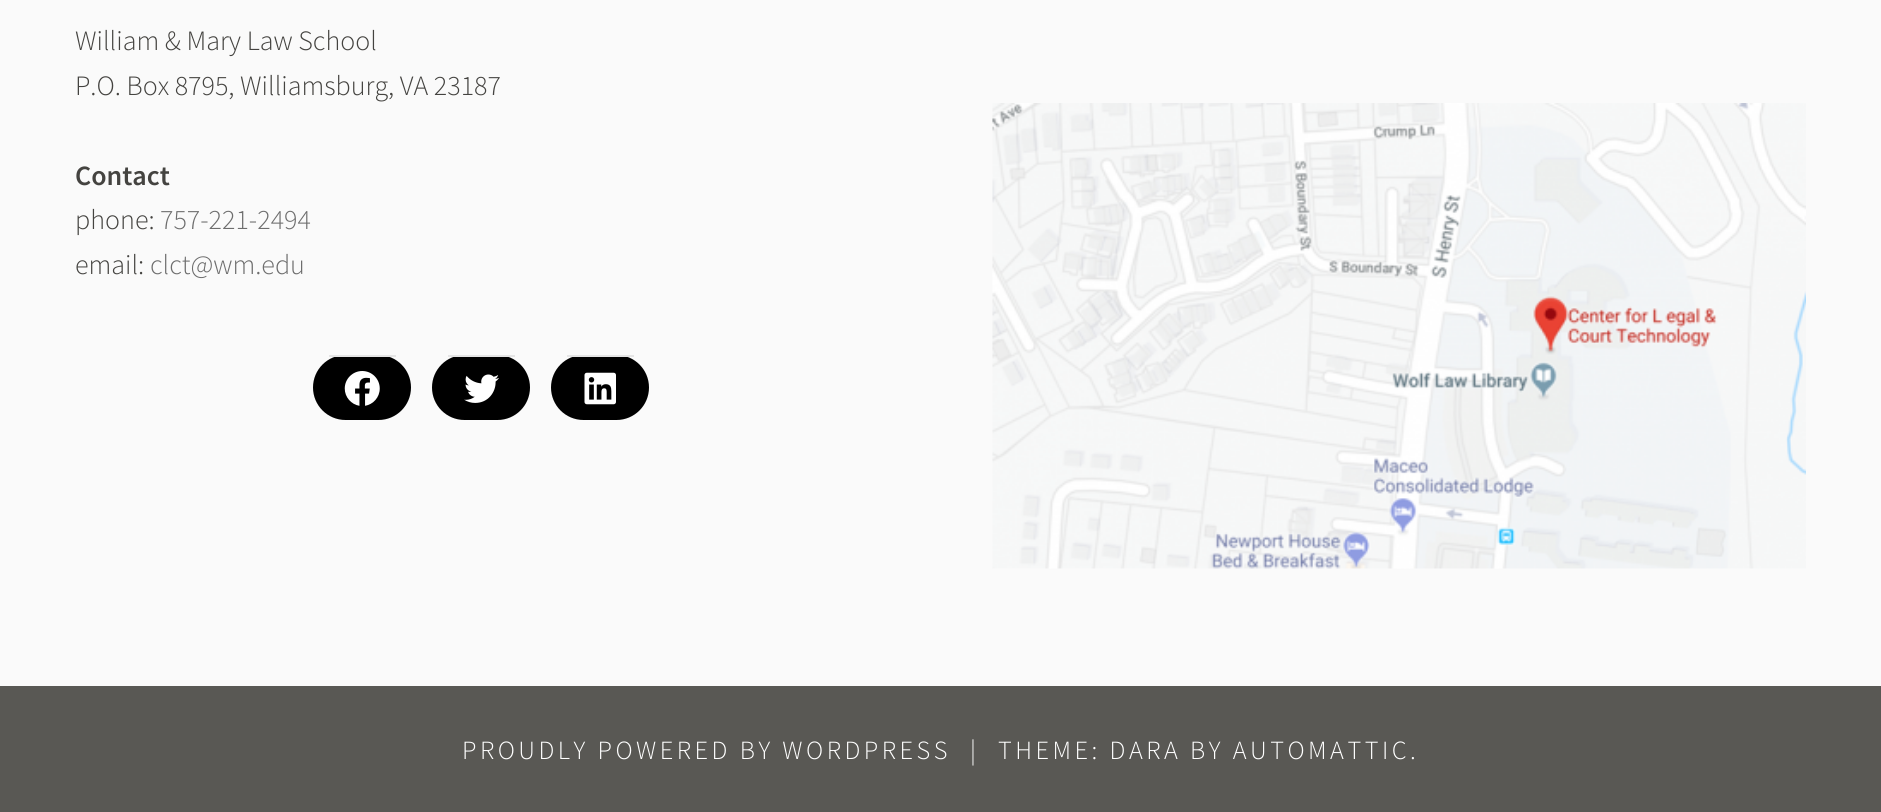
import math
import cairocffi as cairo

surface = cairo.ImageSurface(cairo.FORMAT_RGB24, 1881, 812)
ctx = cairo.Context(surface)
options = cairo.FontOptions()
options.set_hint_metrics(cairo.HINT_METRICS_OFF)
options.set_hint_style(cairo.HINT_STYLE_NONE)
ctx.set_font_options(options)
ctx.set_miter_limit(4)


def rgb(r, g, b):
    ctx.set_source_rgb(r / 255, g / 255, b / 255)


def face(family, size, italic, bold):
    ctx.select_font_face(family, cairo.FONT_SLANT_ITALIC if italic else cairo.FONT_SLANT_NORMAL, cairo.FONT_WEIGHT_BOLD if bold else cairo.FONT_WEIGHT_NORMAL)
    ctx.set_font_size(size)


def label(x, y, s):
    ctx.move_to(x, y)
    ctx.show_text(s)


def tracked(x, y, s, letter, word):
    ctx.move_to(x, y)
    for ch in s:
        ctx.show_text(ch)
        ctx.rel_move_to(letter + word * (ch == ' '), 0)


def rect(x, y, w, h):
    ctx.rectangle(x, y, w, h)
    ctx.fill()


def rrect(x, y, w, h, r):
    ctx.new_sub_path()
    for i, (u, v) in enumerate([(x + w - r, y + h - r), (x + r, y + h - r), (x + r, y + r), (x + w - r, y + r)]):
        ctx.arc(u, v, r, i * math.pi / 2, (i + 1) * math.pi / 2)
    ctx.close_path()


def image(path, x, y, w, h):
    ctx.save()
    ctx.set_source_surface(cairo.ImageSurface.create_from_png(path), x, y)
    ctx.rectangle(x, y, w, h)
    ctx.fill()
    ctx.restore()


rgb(89, 88, 84)
ctx.paint()
rgb(250, 250, 250)
rect(0, 0, 1881, 686)
face('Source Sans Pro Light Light', 28, 0, 0)
rgb(68, 67, 64)
label(75, 50, 'William & Mary Law School')
label(75, 95, 'P.O. Box 8795, Williamsburg, VA 23187')
face('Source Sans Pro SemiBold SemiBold', 28, 0, 0)
label(75, 185, 'Contact')
face('Source Sans Pro Light Light', 28, 0, 0)
label(75, 229, 'phone:')
rgb(109, 109, 109)
label(160, 229, '757-221-2494')
rgb(68, 67, 64)
label(75, 274, 'email:')
rgb(109, 109, 109)
label(150, 274, 'clct@wm.edu')
rgb(0, 0, 0)
rrect(313, 355, 98, 65, 32.5)
ctx.fill()
rgb(229, 229, 229)
rect(329, 355, 67, 2)
image('image0.png', 344, 371, 36, 35)
rgb(0, 0, 0)
rrect(432, 355, 98, 65, 32.5)
ctx.fill()
rgb(229, 229, 229)
rect(448, 355, 67, 2)
image('image1.png', 464, 374, 35, 29)
rgb(0, 0, 0)
rrect(551, 355, 98, 65, 32.5)
ctx.fill()
rgb(229, 229, 229)
rect(567, 355, 67, 2)
image('image2.png', 584, 372, 32, 33)
image('image3.png', 992, 103, 814, 466)
face('Source Sans Pro Light Light', 26.25, 0, 0)
rgb(255, 255, 255)
tracked(462, 759, 'PROUDLY POWERED BY WORDPRESS', 3.5, 0)
tracked(970, 759, '|', 3.5, 0)
tracked(998, 759, 'THEME: DARA BY AUTOMATTIC.', 3.5, 0)
surface.write_to_png('render.png')
